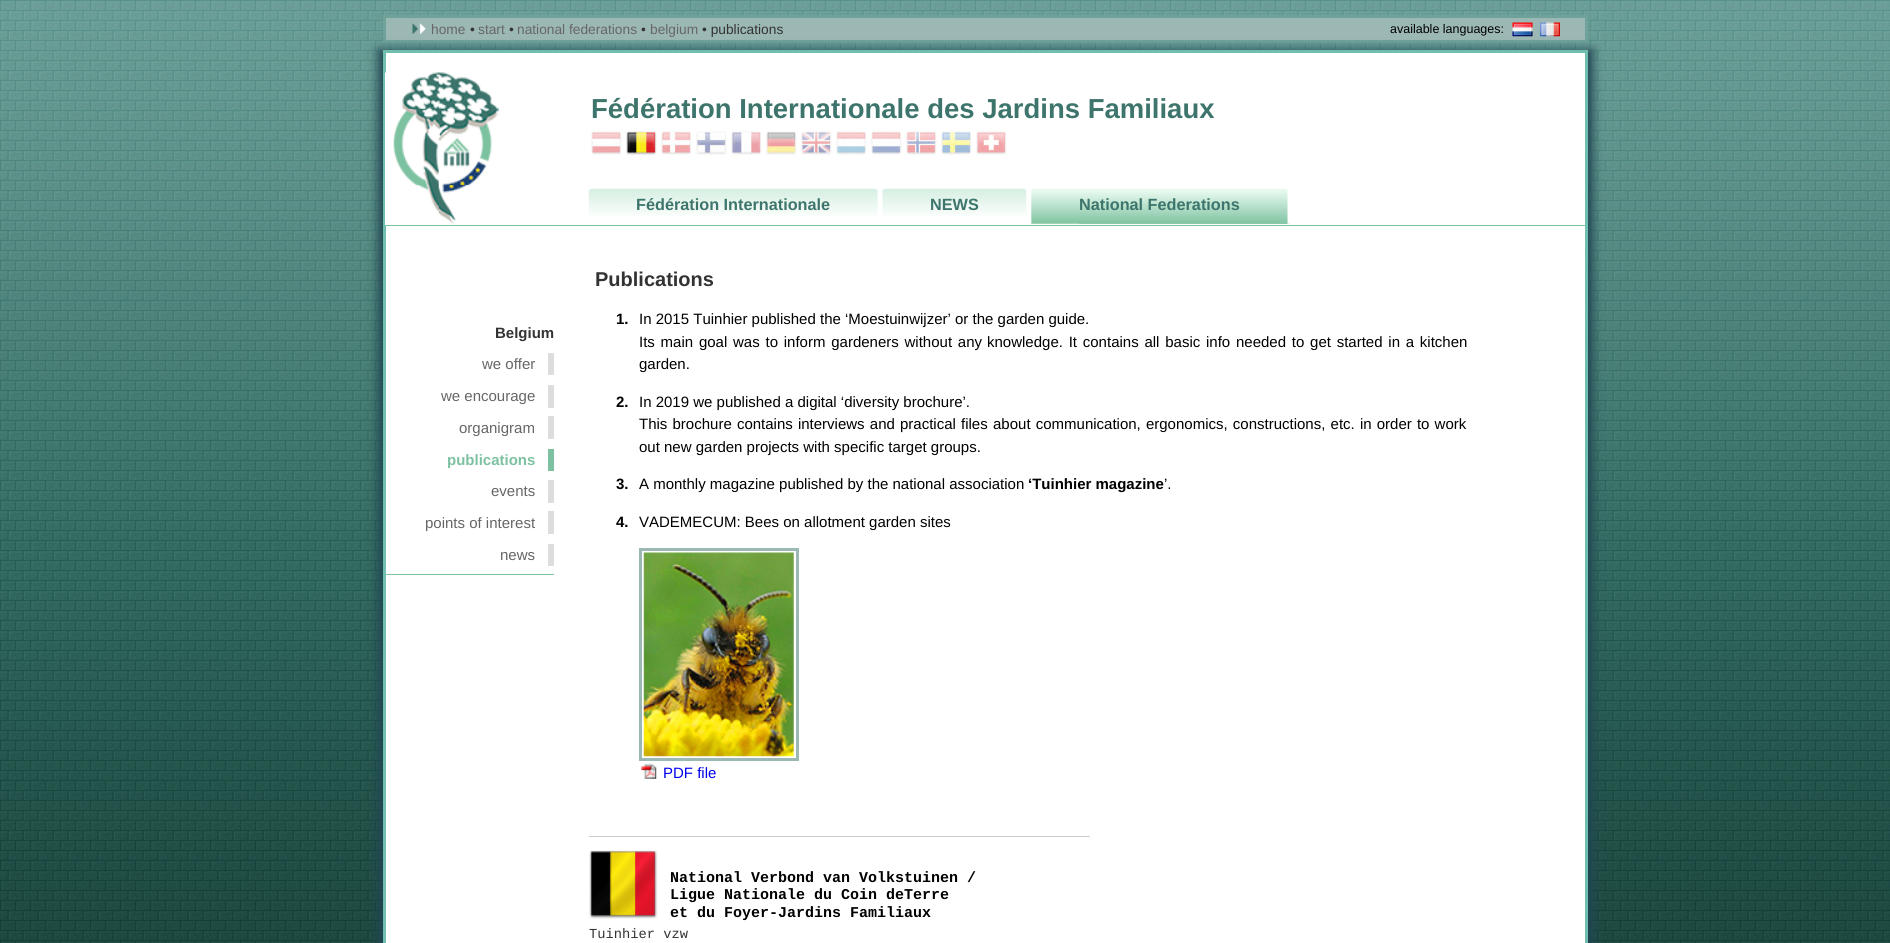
import math
import cairocffi as cairo

surface = cairo.ImageSurface(cairo.FORMAT_RGB24, 1890, 943)
ctx = cairo.Context(surface)
options = cairo.FontOptions()
options.set_hint_metrics(cairo.HINT_METRICS_OFF)
options.set_hint_style(cairo.HINT_STYLE_NONE)
ctx.set_font_options(options)
ctx.set_miter_limit(4)


def rgb(r, g, b):
    ctx.set_source_rgb(r / 255, g / 255, b / 255)


def face(family, size, italic, bold):
    ctx.select_font_face(family, cairo.FONT_SLANT_ITALIC if italic else cairo.FONT_SLANT_NORMAL, cairo.FONT_WEIGHT_BOLD if bold else cairo.FONT_WEIGHT_NORMAL)
    ctx.set_font_size(size)


def label(x, y, s):
    ctx.move_to(x, y)
    ctx.show_text(s)


def tracked(x, y, s, letter, word):
    ctx.move_to(x, y)
    for ch in s:
        ctx.show_text(ch)
        ctx.rel_move_to(letter + word * (ch == ' '), 0)


def rect(x, y, w, h):
    ctx.rectangle(x, y, w, h)
    ctx.fill()


def rrect(x, y, w, h, r):
    ctx.new_sub_path()
    for i, (u, v) in enumerate([(x + w - r, y + h - r), (x + r, y + h - r), (x + r, y + r), (x + w - r, y + r)]):
        ctx.arc(u, v, r, i * math.pi / 2, (i + 1) * math.pi / 2)
    ctx.close_path()


def soft_shadow(x, y, w, h, r, blur, alpha):
    ctx.push_group_with_content(cairo.CONTENT_ALPHA)
    ctx.set_operator(cairo.OPERATOR_SOURCE)
    for i in range(15, -16, -2):
        e = blur * i / 6
        if min(w, h) + 2 * e > 0:
            ctx.set_source_rgba(0, 0, 0, alpha * math.erfc((i - 1) / 8.5) / 2)
            rrect(x - e, y - e, w + 2 * e, h + 2 * e, max(0, min(r + e + blur * .6, min(w, h) / 2 + e)))
            ctx.fill()
    ctx.mask(ctx.pop_group())


def image(path, x, y, w, h):
    ctx.save()
    ctx.set_source_surface(cairo.ImageSurface.create_from_png(path), x, y)
    ctx.rectangle(x, y, w, h)
    ctx.fill()
    ctx.restore()


rgb(255, 255, 255)
ctx.paint()
image('image0.png', 0, 0, 1890, 943)
rgb(156, 184, 180)
ctx.rectangle(384.5, 16.5, 1202, 25)
ctx.fill_preserve()
rgb(111, 162, 155)
ctx.set_line_width(3)
ctx.stroke()
image('image1.png', 412, 23, 14, 11)
face('Liberation Sans', 13.75, 0, 0)
rgb(102, 102, 102)
label(431, 34, 'home')
rgb(51, 51, 51)
label(470, 34, '•')
rgb(102, 102, 102)
label(478, 34, 'start')
rgb(51, 51, 51)
label(509, 34, '•')
rgb(102, 102, 102)
label(517, 34, 'national federations')
rgb(51, 51, 51)
label(641, 34, '•')
rgb(102, 102, 102)
label(650, 34, 'belgium')
rgb(51, 51, 51)
label(702, 34, '• publications')
face('Liberation Sans', 12.5, 0, 0)
rgb(0, 0, 0)
label(1390, 33, 'available languages:')
image('image2.png', 1512, 22, 21, 15)
image('image3.png', 1540, 22, 20, 15)
rgb(33, 70, 84)
soft_shadow(378, 50, 1215, 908, 0, 5, 1)
rgb(255, 255, 255)
ctx.rectangle(384.5, 51.5, 1202, 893)
ctx.fill_preserve()
rgb(112, 190, 176)
ctx.stroke()
image('image4.png', 385, 72, 114, 153)
rgb(125, 194, 160)
rect(385, 225, 1200, 1)
face('Liberation Sans', 27.5, 0, 1)
rgb(61, 117, 108)
label(591, 118, 'Fédération Internationale des Jardins Familiaux')
image('image5.png', 591, 131, 31, 24)
image('image6.png', 626, 131, 31, 24)
image('image7.png', 661, 131, 31, 24)
image('image8.png', 696, 131, 31, 24)
image('image9.png', 731, 131, 31, 24)
image('image10.png', 766, 131, 31, 24)
image('image11.png', 801, 131, 31, 24)
image('image12.png', 836, 131, 31, 24)
image('image13.png', 871, 131, 31, 24)
image('image14.png', 906, 131, 31, 24)
image('image15.png', 941, 131, 31, 24)
image('image16.png', 976, 131, 31, 24)
image('image17.png', 588, 188, 288, 28)
image('image18.png', 876, 188, 4, 28)
face('Liberation Sans', 16.25, 0, 1)
label(636, 210, 'Fédération Internationale')
image('image19.png', 882, 188, 147, 28)
image('image20.png', 1025, 188, 4, 28)
label(930, 210, 'NEWS')
image('image21.png', 1031, 188, 259, 36)
image('image22.png', 1078, 188, 212, 36)
label(1079, 210, 'National Federations')
face('Liberation Sans', 15, 0, 1)
rgb(51, 51, 51)
label(495, 338, 'Belgium')
face('Liberation Sans', 15, 0, 0)
rgb(102, 102, 102)
label(482, 369, 'we offer')
rgb(221, 221, 221)
rect(548, 353, 6, 22)
rgb(102, 102, 102)
label(441, 401, 'we encourage')
rgb(221, 221, 221)
rect(548, 385, 6, 23)
rgb(102, 102, 102)
label(459, 433, 'organigram')
rgb(221, 221, 221)
rect(548, 416, 6, 23)
face('Liberation Sans', 15, 0, 1)
rgb(125, 194, 160)
label(447, 465, 'publications')
rect(548, 449, 6, 22)
face('Liberation Sans', 15, 0, 0)
rgb(102, 102, 102)
label(491, 496, 'events')
rgb(221, 221, 221)
rect(548, 480, 6, 23)
rgb(102, 102, 102)
label(425, 528, 'points of interest')
rgb(221, 221, 221)
rect(548, 511, 6, 23)
rgb(102, 102, 102)
label(500, 560, 'news')
rgb(221, 221, 221)
rect(548, 544, 6, 22)
rgb(125, 194, 160)
rect(385, 574, 169, 1)
face('Liberation Sans', 20, 0, 1)
rgb(51, 51, 51)
label(595, 286, 'Publications')
face('Liberation Sans', 15, 0, 1)
rgb(0, 0, 0)
label(616, 324, '1.')
face('Liberation Sans', 15, 0, 0)
label(639, 324, 'In 2015 Tuinhier published the ‘Moestuinwijzer’ or the garden guide.')
tracked(639, 347, 'Its main goal was to inform gardeners without any', 0, 1.6)
tracked(987, 347, 'knowledge. It contains all basic info needed to get started in a kitchen', 0, 1.6)
label(639, 369, 'garden.')
face('Liberation Sans', 15, 0, 1)
label(616, 407, '2.')
face('Liberation Sans', 15, 0, 0)
label(639, 407, 'In 2019 we published a digital ‘diversity brochure’.')
tracked(639, 429, 'This brochure contains interviews and practical files', 0, 1)
tracked(993, 429, 'about communication, ergonomics, constructions, etc. in order to work', 0, 1)
label(639, 452, 'out new garden projects with specific target groups.')
face('Liberation Sans', 15, 0, 1)
label(616, 489, '3.')
face('Liberation Sans', 15, 0, 0)
label(639, 489, 'A monthly magazine published by the national association')
face('Liberation Sans', 15, 0, 1)
label(1028, 489, '‘Tuinhier magazine')
face('Liberation Sans', 15, 0, 0)
label(1164, 489, '’.')
face('Liberation Sans', 15, 0, 1)
label(616, 527, '4.')
face('Liberation Sans', 15, 0, 0)
label(639, 527, 'VADEMECUM: Bees on allotment garden sites')
ctx.rectangle(640.5, 549.5, 157, 210)
rgb(156, 184, 180)
ctx.stroke()
image('image23.png', 643, 552, 151, 205)
image('image24.png', 641, 763, 16, 16)
rgb(0, 0, 238)
label(663, 778, 'PDF file')
rgb(204, 204, 204)
rect(589, 836, 501, 1)
image('image25.png', 589, 850, 69, 69)
face('Liberation Mono', 15, 0, 1)
rgb(0, 0, 0)
label(670, 882, 'National Verbond van Volkstuinen /')
label(670, 899, 'Ligue Nationale du Coin deTerre')
label(670, 917, 'et du Foyer-Jardins Familiaux')
face('Liberation Mono', 13.75, 0, 0)
rgb(51, 51, 51)
label(589, 938, 'Tuinhier vzw')
surface.write_to_png('render.png')
